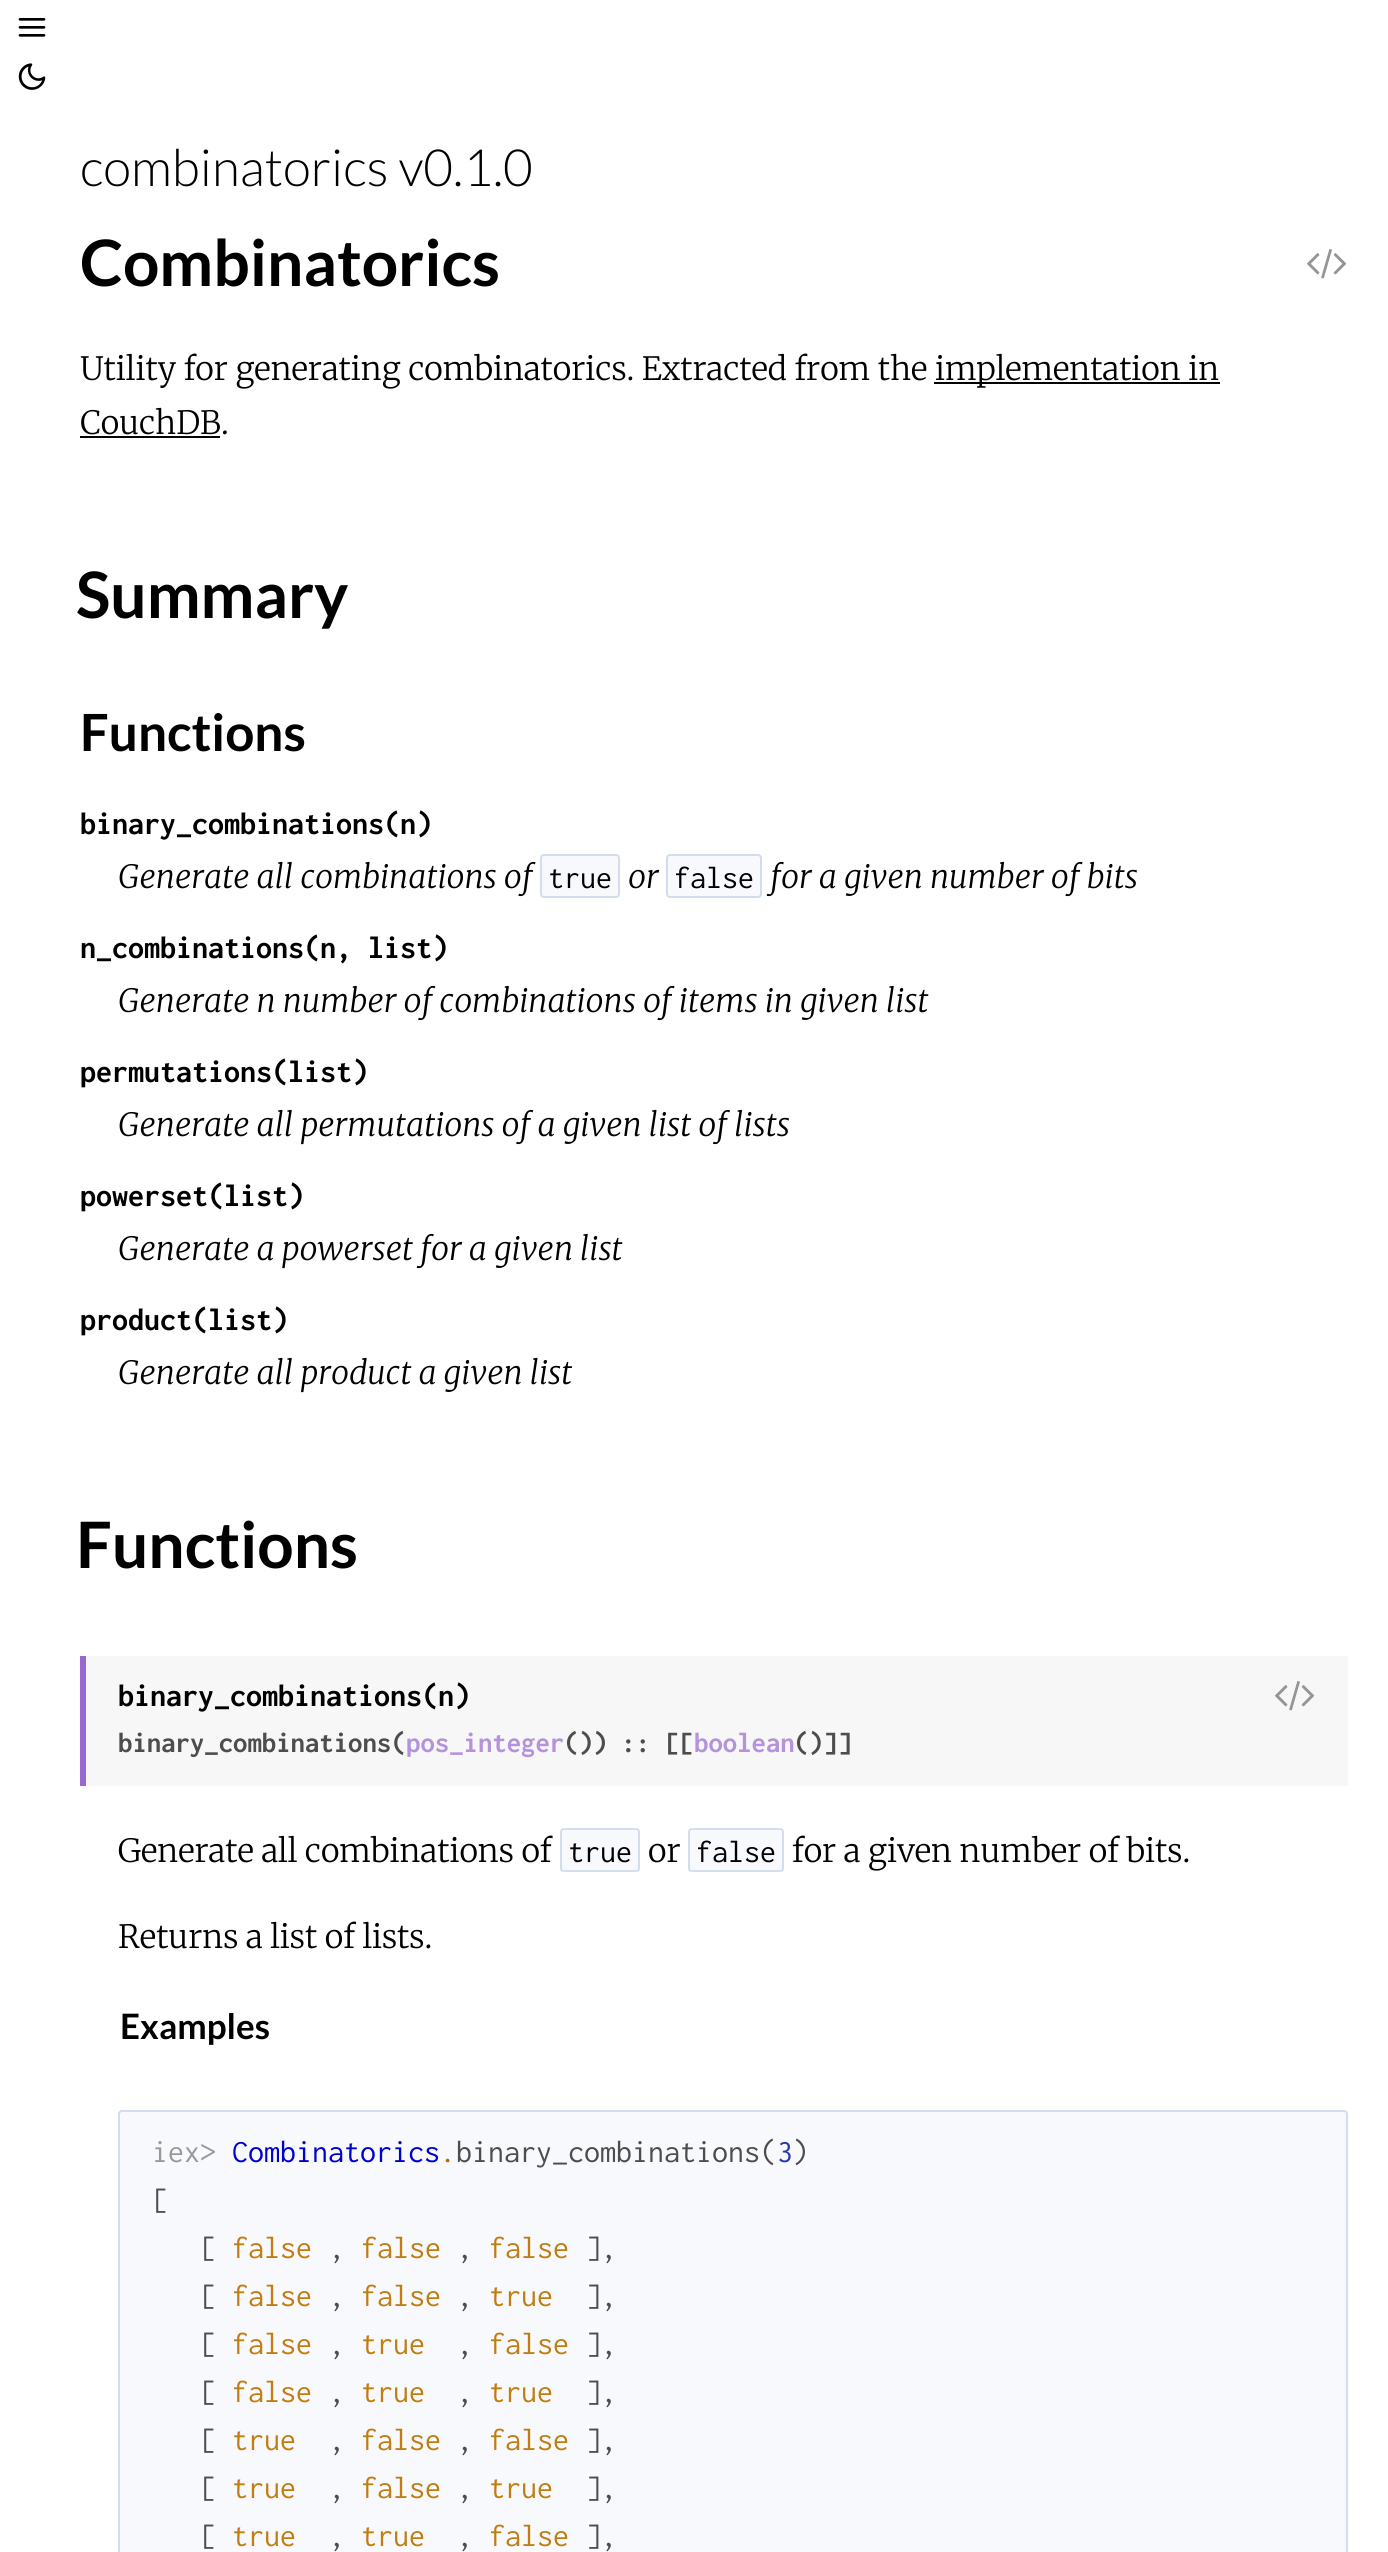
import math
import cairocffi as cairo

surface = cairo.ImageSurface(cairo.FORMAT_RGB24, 1388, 2552)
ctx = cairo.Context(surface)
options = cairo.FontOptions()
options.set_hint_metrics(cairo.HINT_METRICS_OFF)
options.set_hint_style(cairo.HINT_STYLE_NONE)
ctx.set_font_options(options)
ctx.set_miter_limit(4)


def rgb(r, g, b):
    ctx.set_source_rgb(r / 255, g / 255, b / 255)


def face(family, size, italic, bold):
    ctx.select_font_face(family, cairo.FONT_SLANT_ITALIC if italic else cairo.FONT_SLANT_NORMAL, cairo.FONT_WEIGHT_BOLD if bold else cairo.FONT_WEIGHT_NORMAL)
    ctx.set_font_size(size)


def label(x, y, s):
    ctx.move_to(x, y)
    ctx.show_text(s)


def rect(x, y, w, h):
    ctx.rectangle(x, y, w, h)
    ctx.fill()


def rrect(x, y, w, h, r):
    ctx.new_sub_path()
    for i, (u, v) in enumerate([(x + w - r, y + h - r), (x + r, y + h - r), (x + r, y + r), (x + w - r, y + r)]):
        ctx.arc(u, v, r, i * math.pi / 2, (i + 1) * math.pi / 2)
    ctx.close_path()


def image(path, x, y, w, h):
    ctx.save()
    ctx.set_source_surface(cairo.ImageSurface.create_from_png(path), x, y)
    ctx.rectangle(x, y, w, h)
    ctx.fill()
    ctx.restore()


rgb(255, 255, 255)
ctx.paint()
image('image0.png', 18, 18, 28, 19)
image('image1.png', 18, 63, 28, 27)
face('Lato Light', 51.25, 0, 0)
rgb(0, 0, 0)
label(80, 186, 'combinatorics v0.1.0')
face('Lato', 64, 0, 1)
label(80, 286, 'Combinatorics')
image('image2.png', 1307, 249, 40, 30)
face('Merriweather Light', 32, 0, 0)
label(80, 380, 'Utility for generating combinatorics. Extracted from the')
rect(934, 382, 286, 2)
label(935, 380, 'implementation in')
label(80, 434, 'CouchDB.')
rect(80, 436, 140, 2)
face('Lato', 64, 0, 1)
label(76, 618, 'Summary')
face('Lato', 51.25, 0, 1)
label(80, 751, 'Functions')
face('Inconsolata', 32, 0, 1)
label(80, 834, 'binary_combinations(n)')
face('Merriweather Light', 32, 1, 0)
label(118, 888, 'Generate all combinations of')
rgb(247, 249, 252)
rrect(541, 855, 78, 42, 3)
ctx.fill_preserve()
rgb(210, 221, 238)
ctx.stroke()
face('Inconsolata', 32, 0, 0)
rgb(0, 0, 0)
label(548, 888, 'true')
face('Merriweather Light', 32, 1, 0)
label(628, 888, 'or')
rgb(247, 249, 252)
rrect(667, 855, 94, 42, 3)
ctx.fill_preserve()
rgb(210, 221, 238)
ctx.stroke()
face('Inconsolata', 32, 0, 0)
rgb(0, 0, 0)
label(674, 888, 'false')
face('Merriweather Light', 32, 1, 0)
label(770, 888, 'for a given number of bits')
face('Inconsolata', 32, 0, 1)
label(80, 958, 'n_combinations(n, list)')
face('Merriweather Light', 32, 1, 0)
label(118, 1012, 'Generate n number of combinations of items in given list')
face('Inconsolata', 32, 0, 1)
label(80, 1082, 'permutations(list)')
face('Merriweather Light', 32, 1, 0)
label(118, 1136, 'Generate all permutations of a given list of lists')
face('Inconsolata', 32, 0, 1)
label(80, 1206, 'powerset(list)')
face('Merriweather Light', 32, 1, 0)
label(118, 1260, 'Generate a powerset for a given list')
face('Inconsolata', 32, 0, 1)
label(80, 1330, 'product(list)')
face('Merriweather Light', 32, 1, 0)
label(118, 1384, 'Generate all product a given list')
face('Lato', 64, 0, 1)
label(76, 1568, 'Functions')
rgb(247, 247, 247)
rect(86, 1656, 1262, 130)
rgb(151, 104, 209)
rect(80, 1656, 6, 130)
face('Inconsolata', 32, 0, 1)
rgb(0, 0, 0)
label(118, 1706, 'binary_combinations(n)')
image('image3.png', 1275, 1681, 40, 30)
face('Inconsolata', 28.75, 0, 1)
rgb(77, 77, 76)
label(118, 1752, 'binary_combinations(')
rgb(180, 147, 220)
label(406, 1752, 'pos_integer')
rgb(77, 77, 76)
label(564, 1752, '()) :: [[')
rgb(180, 147, 220)
label(694, 1752, 'boolean')
rgb(77, 77, 76)
label(794, 1752, '()]]')
face('Merriweather Light', 32, 0, 0)
rgb(0, 0, 0)
label(118, 1862, 'Generate all combinations of')
rgb(247, 249, 252)
rrect(561, 1829, 78, 42, 3)
ctx.fill_preserve()
rgb(210, 221, 238)
ctx.stroke()
face('Inconsolata', 32, 0, 0)
rgb(0, 0, 0)
label(568, 1862, 'true')
face('Merriweather Light', 32, 0, 0)
label(648, 1862, 'or')
rgb(247, 249, 252)
rrect(689, 1829, 94, 42, 3)
ctx.fill_preserve()
rgb(210, 221, 238)
ctx.stroke()
face('Inconsolata', 32, 0, 0)
rgb(0, 0, 0)
label(696, 1862, 'false')
face('Merriweather Light', 32, 0, 0)
label(792, 1862, 'for a given number of bits.')
label(118, 1948, 'Returns a list of lists.')
face('Lato', 35, 0, 1)
label(120, 2039, 'Examples')
rgb(247, 249, 252)
ctx.new_path()
ctx.move_to(122, 2110)
ctx.line_to(1344, 2110)
ctx.curve_to(1346, 2110, 1348, 2112, 1348, 2114)
ctx.line_to(1348, 2552)
ctx.line_to(118, 2552)
ctx.line_to(118, 2114)
ctx.curve_to(118, 2112, 120, 2110, 122, 2110)
ctx.close_path()
ctx.fill()
rrect(119, 2111, 1228, 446, 3)
rgb(210, 221, 238)
ctx.stroke()
face('Inconsolata', 32, 0, 0)
rgb(153, 153, 153)
label(152, 2162, 'iex>')
rgb(0, 0, 207)
label(232, 2162, 'Combinatorics')
rgb(77, 77, 76)
label(456, 2162, 'binary_combinations( )')
rgb(206, 92, 0)
label(440, 2162, '.')
rgb(41, 55, 171)
label(777, 2162, '3')
rgb(77, 77, 76)
label(152, 2210, '[')
label(200, 2258, '[')
rgb(193, 125, 17)
label(232, 2258, 'false')
rgb(77, 77, 76)
label(329, 2258, ',')
rgb(193, 125, 17)
label(361, 2258, 'false')
rgb(77, 77, 76)
label(457, 2258, ',')
rgb(193, 125, 17)
label(489, 2258, 'false')
rgb(77, 77, 76)
label(585, 2258, '],')
label(200, 2306, '[')
rgb(193, 125, 17)
label(232, 2306, 'false')
rgb(77, 77, 76)
label(329, 2306, ',')
rgb(193, 125, 17)
label(361, 2306, 'false')
rgb(77, 77, 76)
label(457, 2306, ',')
rgb(193, 125, 17)
label(489, 2306, 'true')
rgb(77, 77, 76)
label(585, 2306, '],')
label(200, 2354, '[')
rgb(193, 125, 17)
label(232, 2354, 'false')
rgb(77, 77, 76)
label(329, 2354, ',')
rgb(193, 125, 17)
label(361, 2354, 'true')
rgb(77, 77, 76)
label(457, 2354, ',')
rgb(193, 125, 17)
label(489, 2354, 'false')
rgb(77, 77, 76)
label(585, 2354, '],')
label(200, 2402, '[')
rgb(193, 125, 17)
label(232, 2402, 'false')
rgb(77, 77, 76)
label(329, 2402, ',')
rgb(193, 125, 17)
label(361, 2402, 'true')
rgb(77, 77, 76)
label(457, 2402, ',')
rgb(193, 125, 17)
label(489, 2402, 'true')
rgb(77, 77, 76)
label(585, 2402, '],')
label(200, 2450, '[')
rgb(193, 125, 17)
label(232, 2450, 'true')
rgb(77, 77, 76)
label(329, 2450, ',')
rgb(193, 125, 17)
label(361, 2450, 'false')
rgb(77, 77, 76)
label(457, 2450, ',')
rgb(193, 125, 17)
label(489, 2450, 'false')
rgb(77, 77, 76)
label(585, 2450, '],')
label(200, 2498, '[')
rgb(193, 125, 17)
label(232, 2498, 'true')
rgb(77, 77, 76)
label(329, 2498, ',')
rgb(193, 125, 17)
label(361, 2498, 'false')
rgb(77, 77, 76)
label(457, 2498, ',')
rgb(193, 125, 17)
label(489, 2498, 'true')
rgb(77, 77, 76)
label(585, 2498, '],')
label(200, 2546, '[')
rgb(193, 125, 17)
label(232, 2546, 'true')
rgb(77, 77, 76)
label(329, 2546, ',')
rgb(193, 125, 17)
label(361, 2546, 'true')
rgb(77, 77, 76)
label(457, 2546, ',')
rgb(193, 125, 17)
label(489, 2546, 'false')
rgb(77, 77, 76)
label(585, 2546, '],')
surface.write_to_png('render.png')
